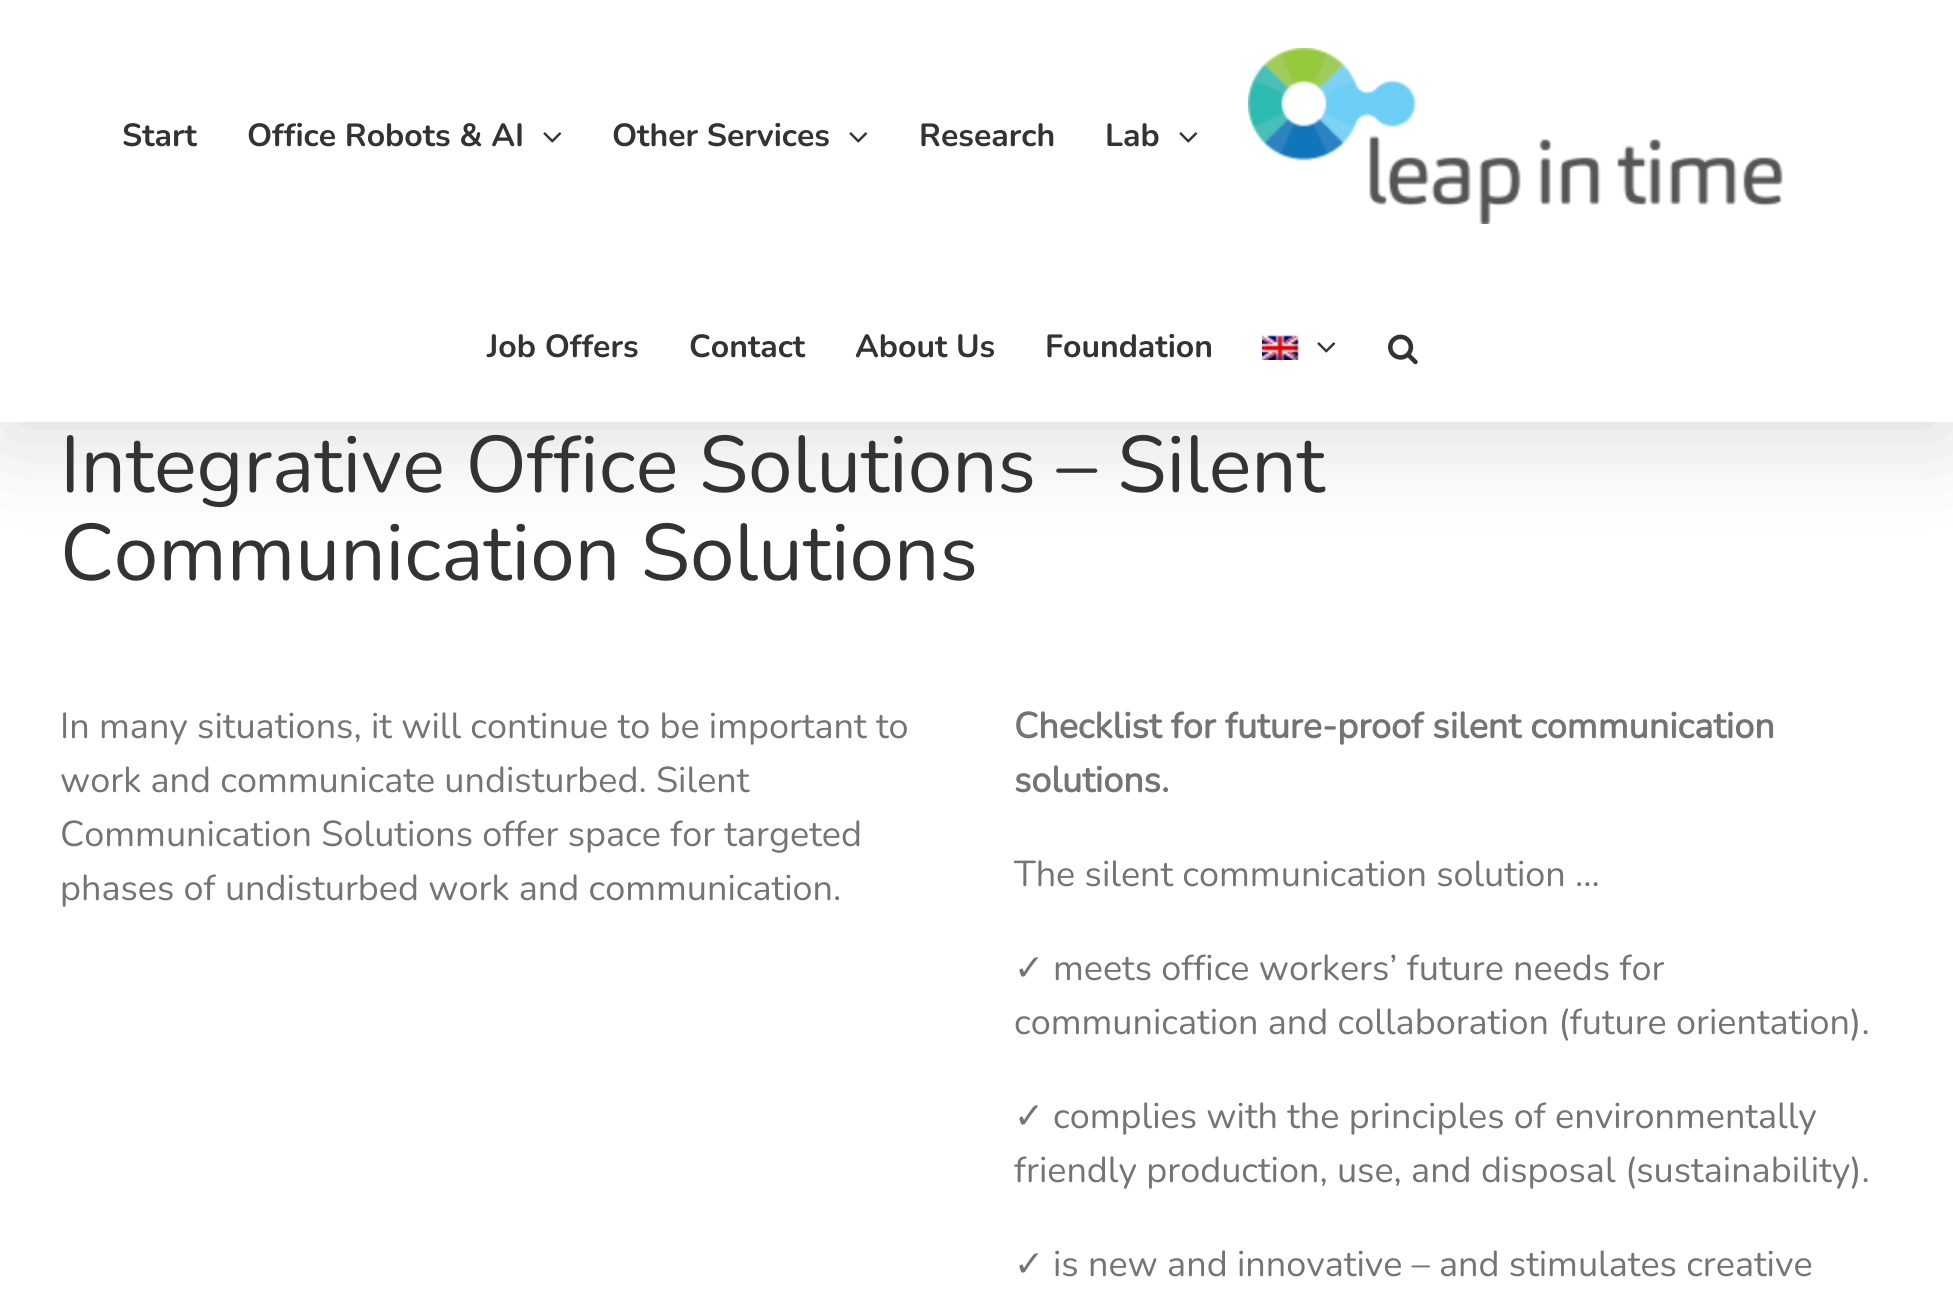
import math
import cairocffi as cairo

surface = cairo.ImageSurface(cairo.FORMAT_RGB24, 1953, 1312)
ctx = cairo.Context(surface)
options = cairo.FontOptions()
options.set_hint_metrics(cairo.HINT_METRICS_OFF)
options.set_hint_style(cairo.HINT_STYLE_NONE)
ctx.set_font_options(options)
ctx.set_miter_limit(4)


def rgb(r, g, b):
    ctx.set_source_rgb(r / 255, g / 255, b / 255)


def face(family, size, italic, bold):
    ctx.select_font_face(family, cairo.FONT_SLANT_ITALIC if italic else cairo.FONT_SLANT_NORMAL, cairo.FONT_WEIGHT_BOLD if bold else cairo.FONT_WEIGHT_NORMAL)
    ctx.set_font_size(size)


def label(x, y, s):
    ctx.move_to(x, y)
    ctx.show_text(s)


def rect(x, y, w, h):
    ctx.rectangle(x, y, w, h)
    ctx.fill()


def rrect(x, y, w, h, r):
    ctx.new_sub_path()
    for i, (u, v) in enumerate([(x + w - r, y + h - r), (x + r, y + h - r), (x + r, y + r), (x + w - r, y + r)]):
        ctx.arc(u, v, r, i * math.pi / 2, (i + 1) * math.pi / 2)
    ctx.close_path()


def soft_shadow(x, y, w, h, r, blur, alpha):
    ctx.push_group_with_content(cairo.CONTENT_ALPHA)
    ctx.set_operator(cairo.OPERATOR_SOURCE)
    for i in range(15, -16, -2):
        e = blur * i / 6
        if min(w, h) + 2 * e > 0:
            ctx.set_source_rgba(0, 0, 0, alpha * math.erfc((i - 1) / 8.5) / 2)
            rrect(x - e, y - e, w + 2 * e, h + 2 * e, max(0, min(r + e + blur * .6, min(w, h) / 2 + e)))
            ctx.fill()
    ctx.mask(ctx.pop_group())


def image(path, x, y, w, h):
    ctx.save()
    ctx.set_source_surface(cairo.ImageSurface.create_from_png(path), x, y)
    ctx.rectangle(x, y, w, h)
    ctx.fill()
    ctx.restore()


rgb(255, 255, 255)
ctx.paint()
rgb(0, 0, 0)
soft_shadow(4, 24, 1946, 414, 0, 50, 0.14)
rgb(255, 255, 255)
rect(0, 0, 1953, 422)
face('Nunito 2', 32, 0, 1)
rgb(51, 51, 51)
label(122, 146, 'Start')
label(247, 146, 'Office Robots & AI')
image('image0.png', 543, 132, 19, 11)
label(612, 146, 'Other Services')
image('image0.png', 849, 132, 19, 11)
label(919, 146, 'Research')
label(1105, 146, 'Lab')
image('image0.png', 1179, 132, 19, 11)
image('image1.png', 1248, 48, 535, 176)
label(487, 357, 'Job Offers')
label(689, 357, 'Contact')
label(855, 357, 'About Us')
label(1045, 357, 'Foundation')
image('image2.png', 1262, 335, 37, 25)
image('image0.png', 1317, 342, 19, 11)
image('image3.png', 1388, 334, 30, 31)
face('Nunito', 80, 0, 0)
label(60, 492, 'Integrative Office Solutions – Silent')
label(60, 580, 'Communication Solutions')
face('Nunito', 36, 0, 0)
rgb(116, 116, 116)
label(60, 738, 'In many situations, it will continue to be important to')
label(60, 792, 'work and communicate undisturbed. Silent')
label(60, 846, 'Communication Solutions offer space for targeted')
label(60, 900, 'phases of undisturbed work and communication.')
face('Nunito', 36, 0, 1)
label(1014, 738, 'Checklist for future-proof silent communication')
label(1014, 792, 'solutions.')
face('Nunito', 36, 0, 0)
label(1014, 886, 'The silent communication solution …')
face('DejaVu Sans', 36, 0, 0)
label(1014, 980, '✓')
face('Nunito', 36, 0, 0)
label(1053, 980, 'meets office workers’ future needs for')
label(1014, 1034, 'communication and collaboration (future orientation).')
face('DejaVu Sans', 36, 0, 0)
label(1014, 1128, '✓')
face('Nunito', 36, 0, 0)
label(1053, 1128, 'complies with the principles of environmentally')
label(1014, 1182, 'friendly production, use, and disposal (sustainability).')
face('DejaVu Sans', 36, 0, 0)
label(1014, 1276, '✓')
face('Nunito', 36, 0, 0)
label(1053, 1276, 'is new and innovative – and stimulates creative')
surface.write_to_png('render.png')
